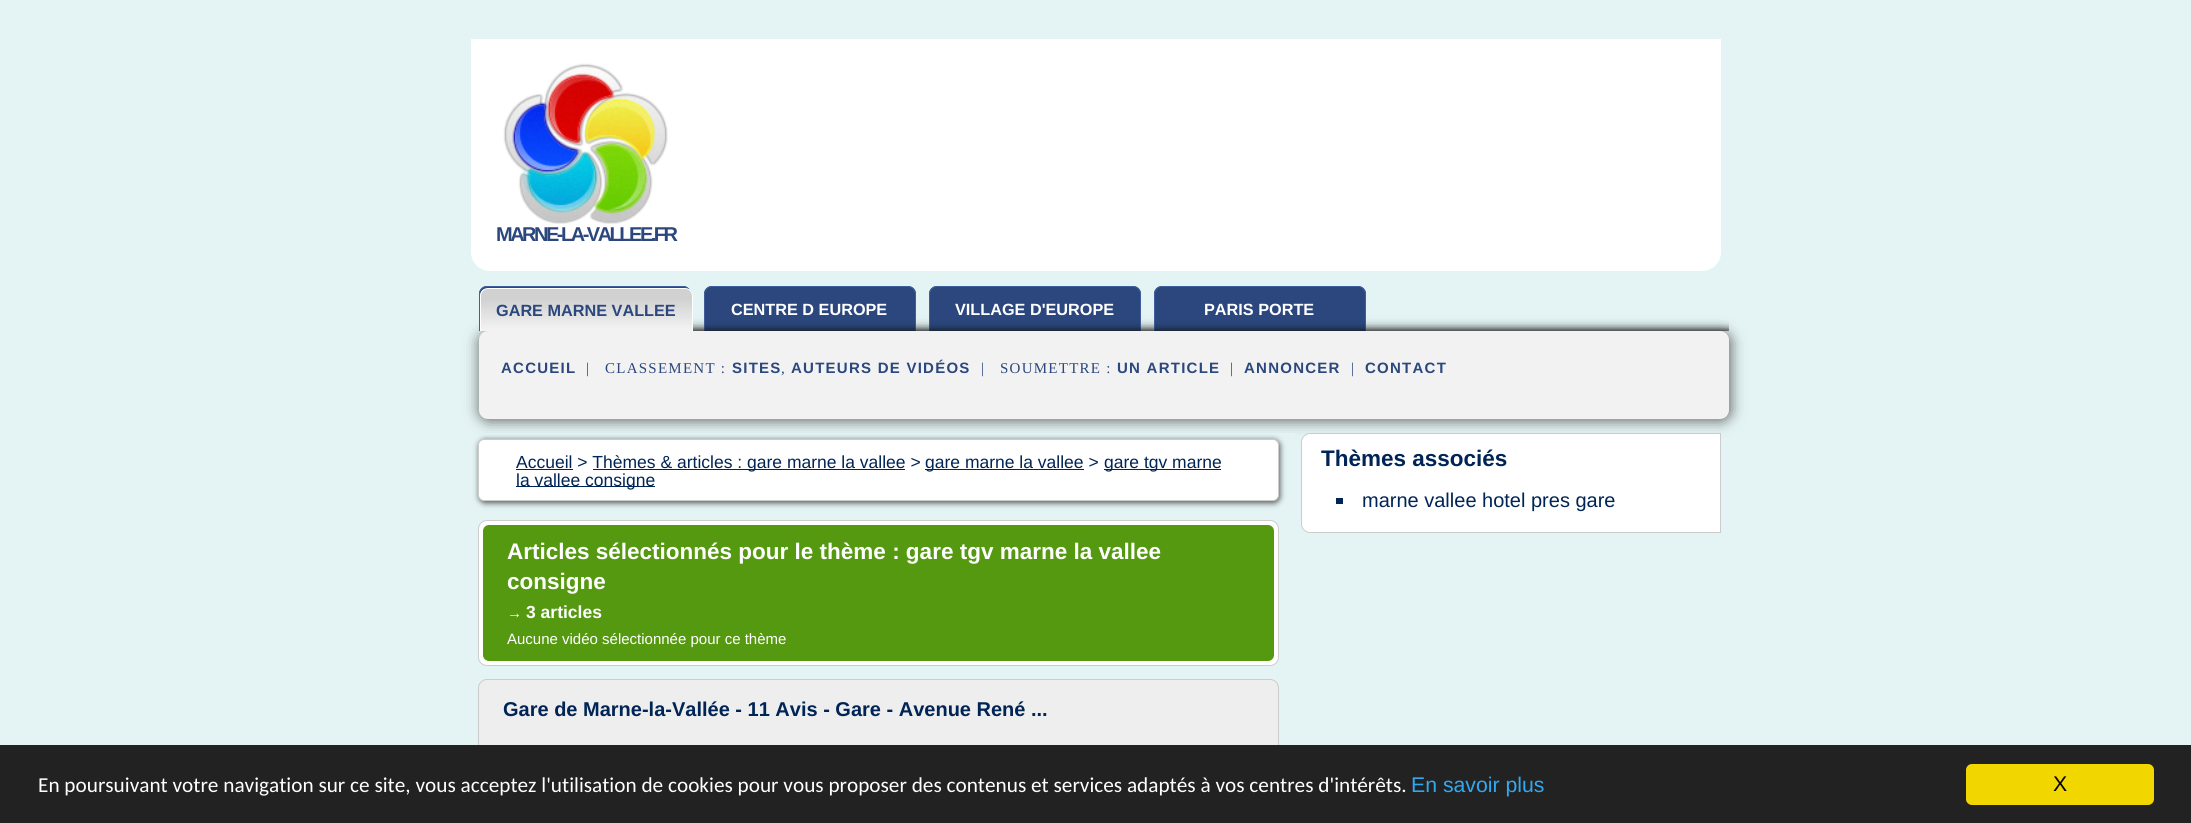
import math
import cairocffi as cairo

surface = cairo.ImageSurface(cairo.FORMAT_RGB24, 2191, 823)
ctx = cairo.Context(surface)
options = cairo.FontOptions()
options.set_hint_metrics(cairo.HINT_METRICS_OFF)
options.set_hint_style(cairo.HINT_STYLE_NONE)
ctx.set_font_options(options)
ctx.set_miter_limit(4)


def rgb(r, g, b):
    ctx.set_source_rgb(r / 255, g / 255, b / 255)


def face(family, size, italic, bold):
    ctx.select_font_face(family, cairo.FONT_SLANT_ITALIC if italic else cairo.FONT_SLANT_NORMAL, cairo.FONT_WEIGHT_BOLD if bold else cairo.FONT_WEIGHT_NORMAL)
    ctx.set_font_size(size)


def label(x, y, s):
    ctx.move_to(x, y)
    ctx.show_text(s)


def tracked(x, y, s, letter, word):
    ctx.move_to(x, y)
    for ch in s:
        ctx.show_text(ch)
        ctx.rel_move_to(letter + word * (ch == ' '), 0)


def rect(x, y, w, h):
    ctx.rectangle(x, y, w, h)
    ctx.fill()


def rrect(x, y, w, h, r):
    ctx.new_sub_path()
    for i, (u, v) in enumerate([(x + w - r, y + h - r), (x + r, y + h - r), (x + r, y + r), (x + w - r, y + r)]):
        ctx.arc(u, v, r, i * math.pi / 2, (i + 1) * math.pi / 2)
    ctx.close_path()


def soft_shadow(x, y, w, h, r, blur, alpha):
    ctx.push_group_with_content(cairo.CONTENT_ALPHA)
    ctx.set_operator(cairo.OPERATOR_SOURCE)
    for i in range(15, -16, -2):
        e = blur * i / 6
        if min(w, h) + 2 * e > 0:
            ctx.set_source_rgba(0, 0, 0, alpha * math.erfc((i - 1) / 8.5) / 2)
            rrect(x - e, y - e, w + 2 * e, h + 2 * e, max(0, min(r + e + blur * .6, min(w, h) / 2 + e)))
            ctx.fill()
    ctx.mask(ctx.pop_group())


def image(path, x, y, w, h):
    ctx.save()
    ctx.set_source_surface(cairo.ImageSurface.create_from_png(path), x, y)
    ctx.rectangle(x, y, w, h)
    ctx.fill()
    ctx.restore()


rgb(228, 244, 244)
ctx.paint()
rgb(255, 255, 255)
ctx.new_path()
ctx.move_to(471, 39)
ctx.line_to(1721, 39)
ctx.line_to(1721, 252)
ctx.curve_to(1721, 262.5, 1712.5, 271, 1702, 271)
ctx.line_to(490, 271)
ctx.curve_to(479.5, 271, 471, 262.5, 471, 252)
ctx.close_path()
ctx.fill()
image('image0.png', 503, 63, 165, 161)
face('Liberation Sans', 20, 0, 1)
rgb(43, 71, 125)
tracked(496, 241, 'MARNE-LA-VALLEE.FR', -2.5, 0)
rgb(85, 85, 85)
soft_shadow(480, 333, 1250, 87, 9, 7.5, 1)
rgb(43, 71, 125)
ctx.new_path()
ctx.move_to(712, 286)
ctx.line_to(908, 286)
ctx.curve_to(912.5, 286, 916, 289.5, 916, 294)
ctx.line_to(916, 331)
ctx.line_to(704, 331)
ctx.line_to(704, 294)
ctx.curve_to(704, 289.5, 707.5, 286, 712, 286)
ctx.close_path()
ctx.fill()
rgb(242, 242, 242)
rrect(479, 331, 1250, 88, 9)
ctx.fill()
ctx.save()
ctx.rectangle(479, 286, 1250, 45)
ctx.clip()
rrect(704.5, 286.5, 211, 52, 7.5)
rgb(65, 95, 157)
ctx.set_line_width(1)
ctx.stroke()
ctx.restore()
rgb(43, 71, 125)
ctx.new_path()
ctx.move_to(937, 286)
ctx.line_to(1133, 286)
ctx.curve_to(1137.5, 286, 1141, 289.5, 1141, 294)
ctx.line_to(1141, 331)
ctx.line_to(929, 331)
ctx.line_to(929, 294)
ctx.curve_to(929, 289.5, 932.5, 286, 937, 286)
ctx.close_path()
ctx.fill()
ctx.save()
ctx.rectangle(479, 286, 1250, 45)
ctx.clip()
rrect(929.5, 286.5, 211, 52, 7.5)
rgb(65, 95, 157)
ctx.set_line_width(1)
ctx.stroke()
ctx.restore()
ctx.new_path()
ctx.move_to(1162, 286)
ctx.line_to(1358, 286)
ctx.curve_to(1362.5, 286, 1366, 289.5, 1366, 294)
ctx.line_to(1366, 331)
ctx.line_to(1154, 331)
ctx.line_to(1154, 294)
ctx.curve_to(1154, 289.5, 1157.5, 286, 1162, 286)
ctx.close_path()
ctx.fill()
ctx.save()
ctx.rectangle(479, 286, 1250, 45)
ctx.clip()
rrect(1154.5, 286.5, 211, 52, 7.5)
rgb(65, 95, 157)
ctx.set_line_width(1)
ctx.stroke()
ctx.restore()
ctx.save()
ctx.rectangle(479, 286, 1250, 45)
ctx.clip()
rgb(17, 17, 17)
soft_shadow(479, 330, 1250, 3, 1.5, 4, 1)
ctx.restore()
ctx.new_path()
ctx.move_to(487, 286)
ctx.line_to(683, 286)
ctx.curve_to(687.5, 286, 691, 289.5, 691, 294)
ctx.line_to(691, 331)
ctx.line_to(479, 331)
ctx.line_to(479, 294)
ctx.curve_to(479, 289.5, 482.5, 286, 487, 286)
ctx.close_path()
ctx.fill()
ctx.save()
ctx.rectangle(479, 286, 1250, 45)
ctx.clip()
rrect(479.5, 286.5, 211, 54, 7.5)
rgb(65, 95, 157)
ctx.set_line_width(1)
ctx.stroke()
ctx.restore()
ctx.save()
rrect(480, 288, 213, 52, 8)
ctx.clip()
gradient = cairo.LinearGradient(481, 339, 481, 289)
gradient.add_color_stop_rgba(0.2, 0.949, 0.949, 0.949, 1)
gradient.add_color_stop_rgba(0.8, 0.82, 0.82, 0.82, 1)
ctx.set_source(gradient)
rect(480, 289, 213, 42)
ctx.restore()
ctx.save()
ctx.rectangle(479, 286, 1250, 45)
ctx.clip()
rrect(480.5, 288.5, 212, 51, 7.5)
rgb(255, 255, 255)
ctx.set_line_width(1)
ctx.stroke()
ctx.restore()
face('Liberation Sans', 16.25, 0, 1)
label(496, 316, 'GARE MARNE VALLEE')
rgb(255, 255, 255)
label(731, 315, 'CENTRE D EUROPE')
label(955, 315, 'VILLAGE D\'EUROPE')
label(1204, 315, 'PARIS PORTE')
face('Liberation Sans', 15, 0, 1)
rgb(43, 71, 125)
tracked(501, 373, 'ACCUEIL', 1.25, 0)
face('Liberation Serif', 15, 0, 0)
tracked(586, 373, '|', 1.25, 0)
tracked(605, 373, 'CLASSEMENT :', 1.25, 0)
face('Liberation Sans', 15, 0, 1)
tracked(732, 373, 'SITES', 1.25, 0)
face('Liberation Serif', 15, 0, 0)
tracked(781, 373, ',', 1.25, 0)
face('Liberation Sans', 15, 0, 1)
tracked(791, 373, 'AUTEURS DE VIDÉOS', 1.25, 0)
face('Liberation Serif', 15, 0, 0)
tracked(981, 373, '|', 1.25, 0)
tracked(1000, 373, 'SOUMETTRE :', 1.25, 0)
face('Liberation Sans', 15, 0, 1)
tracked(1117, 373, 'UN ARTICLE', 1.25, 0)
face('Liberation Serif', 15, 0, 0)
tracked(1230, 373, '|', 1.25, 0)
face('Liberation Sans', 15, 0, 1)
tracked(1244, 373, 'ANNONCER', 1.25, 0)
face('Liberation Serif', 15, 0, 0)
tracked(1351, 373, '|', 1.25, 0)
face('Liberation Sans', 15, 0, 1)
tracked(1365, 373, 'CONTACT', 1.25, 0)
rgb(228, 244, 244)
rect(482, 433, 813, 3)
rgb(85, 85, 85)
soft_shadow(479, 440, 801, 63, 6, 3, 1)
rgb(255, 255, 255)
rrect(478.5, 439.5, 800, 61, 5.5)
ctx.fill_preserve()
rgb(204, 204, 204)
ctx.set_line_width(1)
ctx.stroke()
face('Liberation Sans', 17.5, 0, 0)
rgb(0, 36, 85)
label(516, 468, 'Accueil > Thèmes & articles :')
rect(516, 469, 57, 1)
rect(593, 469, 312, 1)
label(747, 468, 'gare marne la vallee >')
rect(925, 469, 159, 1)
label(925, 468, 'gare marne la vallee >')
rect(1104, 469, 117, 1)
label(1104, 468, 'gare tgv marne')
rect(516, 486, 139, 1)
label(516, 486, 'la vallee consigne')
rgb(255, 255, 255)
rrect(478.5, 520.5, 800, 145, 8.5)
ctx.fill_preserve()
rgb(204, 204, 204)
ctx.stroke()
rgb(85, 153, 17)
rrect(483, 525, 791, 136, 6)
ctx.fill()
face('Liberation Sans', 22.5, 0, 1)
rgb(255, 255, 255)
label(507, 559, 'Articles sélectionnés pour le thème : gare tgv marne la vallee')
label(507, 589, 'consigne')
face('Liberation Sans', 15, 0, 0)
label(507, 618, '→')
face('Liberation Sans', 17.5, 0, 1)
label(526, 618, '3 articles')
face('Liberation Sans', 15, 0, 0)
label(507, 644, 'Aucune vidéo sélectionnée pour ce thème')
rgb(238, 238, 238)
rrect(478.5, 679.5, 800, 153, 8.5)
ctx.fill_preserve()
rgb(204, 204, 204)
ctx.stroke()
face('Liberation Sans', 20, 0, 1)
rgb(0, 36, 85)
label(503, 716, 'Gare de Marne-la-Vallée - 11 Avis - Gare - Avenue René ...')
rgb(255, 255, 255)
ctx.new_path()
ctx.move_to(1310, 433.5)
ctx.line_to(1720.5, 433.5)
ctx.line_to(1720.5, 532.5)
ctx.line_to(1310, 532.5)
ctx.curve_to(1305.5, 532.5, 1301.5, 528.5, 1301.5, 524)
ctx.line_to(1301.5, 442)
ctx.curve_to(1301.5, 437.5, 1305.5, 433.5, 1310, 433.5)
ctx.close_path()
ctx.fill_preserve()
rgb(204, 204, 204)
ctx.stroke()
face('Liberation Sans', 22.5, 0, 1)
rgb(0, 36, 85)
label(1321, 466, 'Thèmes associés')
rect(1336, 498, 7, 6)
face('Liberation Sans', 20, 0, 0)
label(1362, 507, 'marne vallee hotel pres gare')
rgb(34, 34, 34)
rect(0, 745, 2191, 78)
face('Carlito', 21.25, 0, 0)
rgb(255, 255, 255)
label(38, 792, 'En poursuivant votre navigation sur ce site, vous acceptez l\'utilisation de cookies pour vous proposer des contenus et services adaptés à vos centres d\'intérêts.')
face('Liberation Sans', 21.25, 0, 0)
rgb(49, 168, 240)
label(1411, 792, 'En savoir plus')
rgb(241, 214, 0)
rrect(1966, 764, 188, 41, 6)
ctx.fill()
rgb(0, 0, 0)
label(2053, 791, 'X')
surface.write_to_png('render.png')
